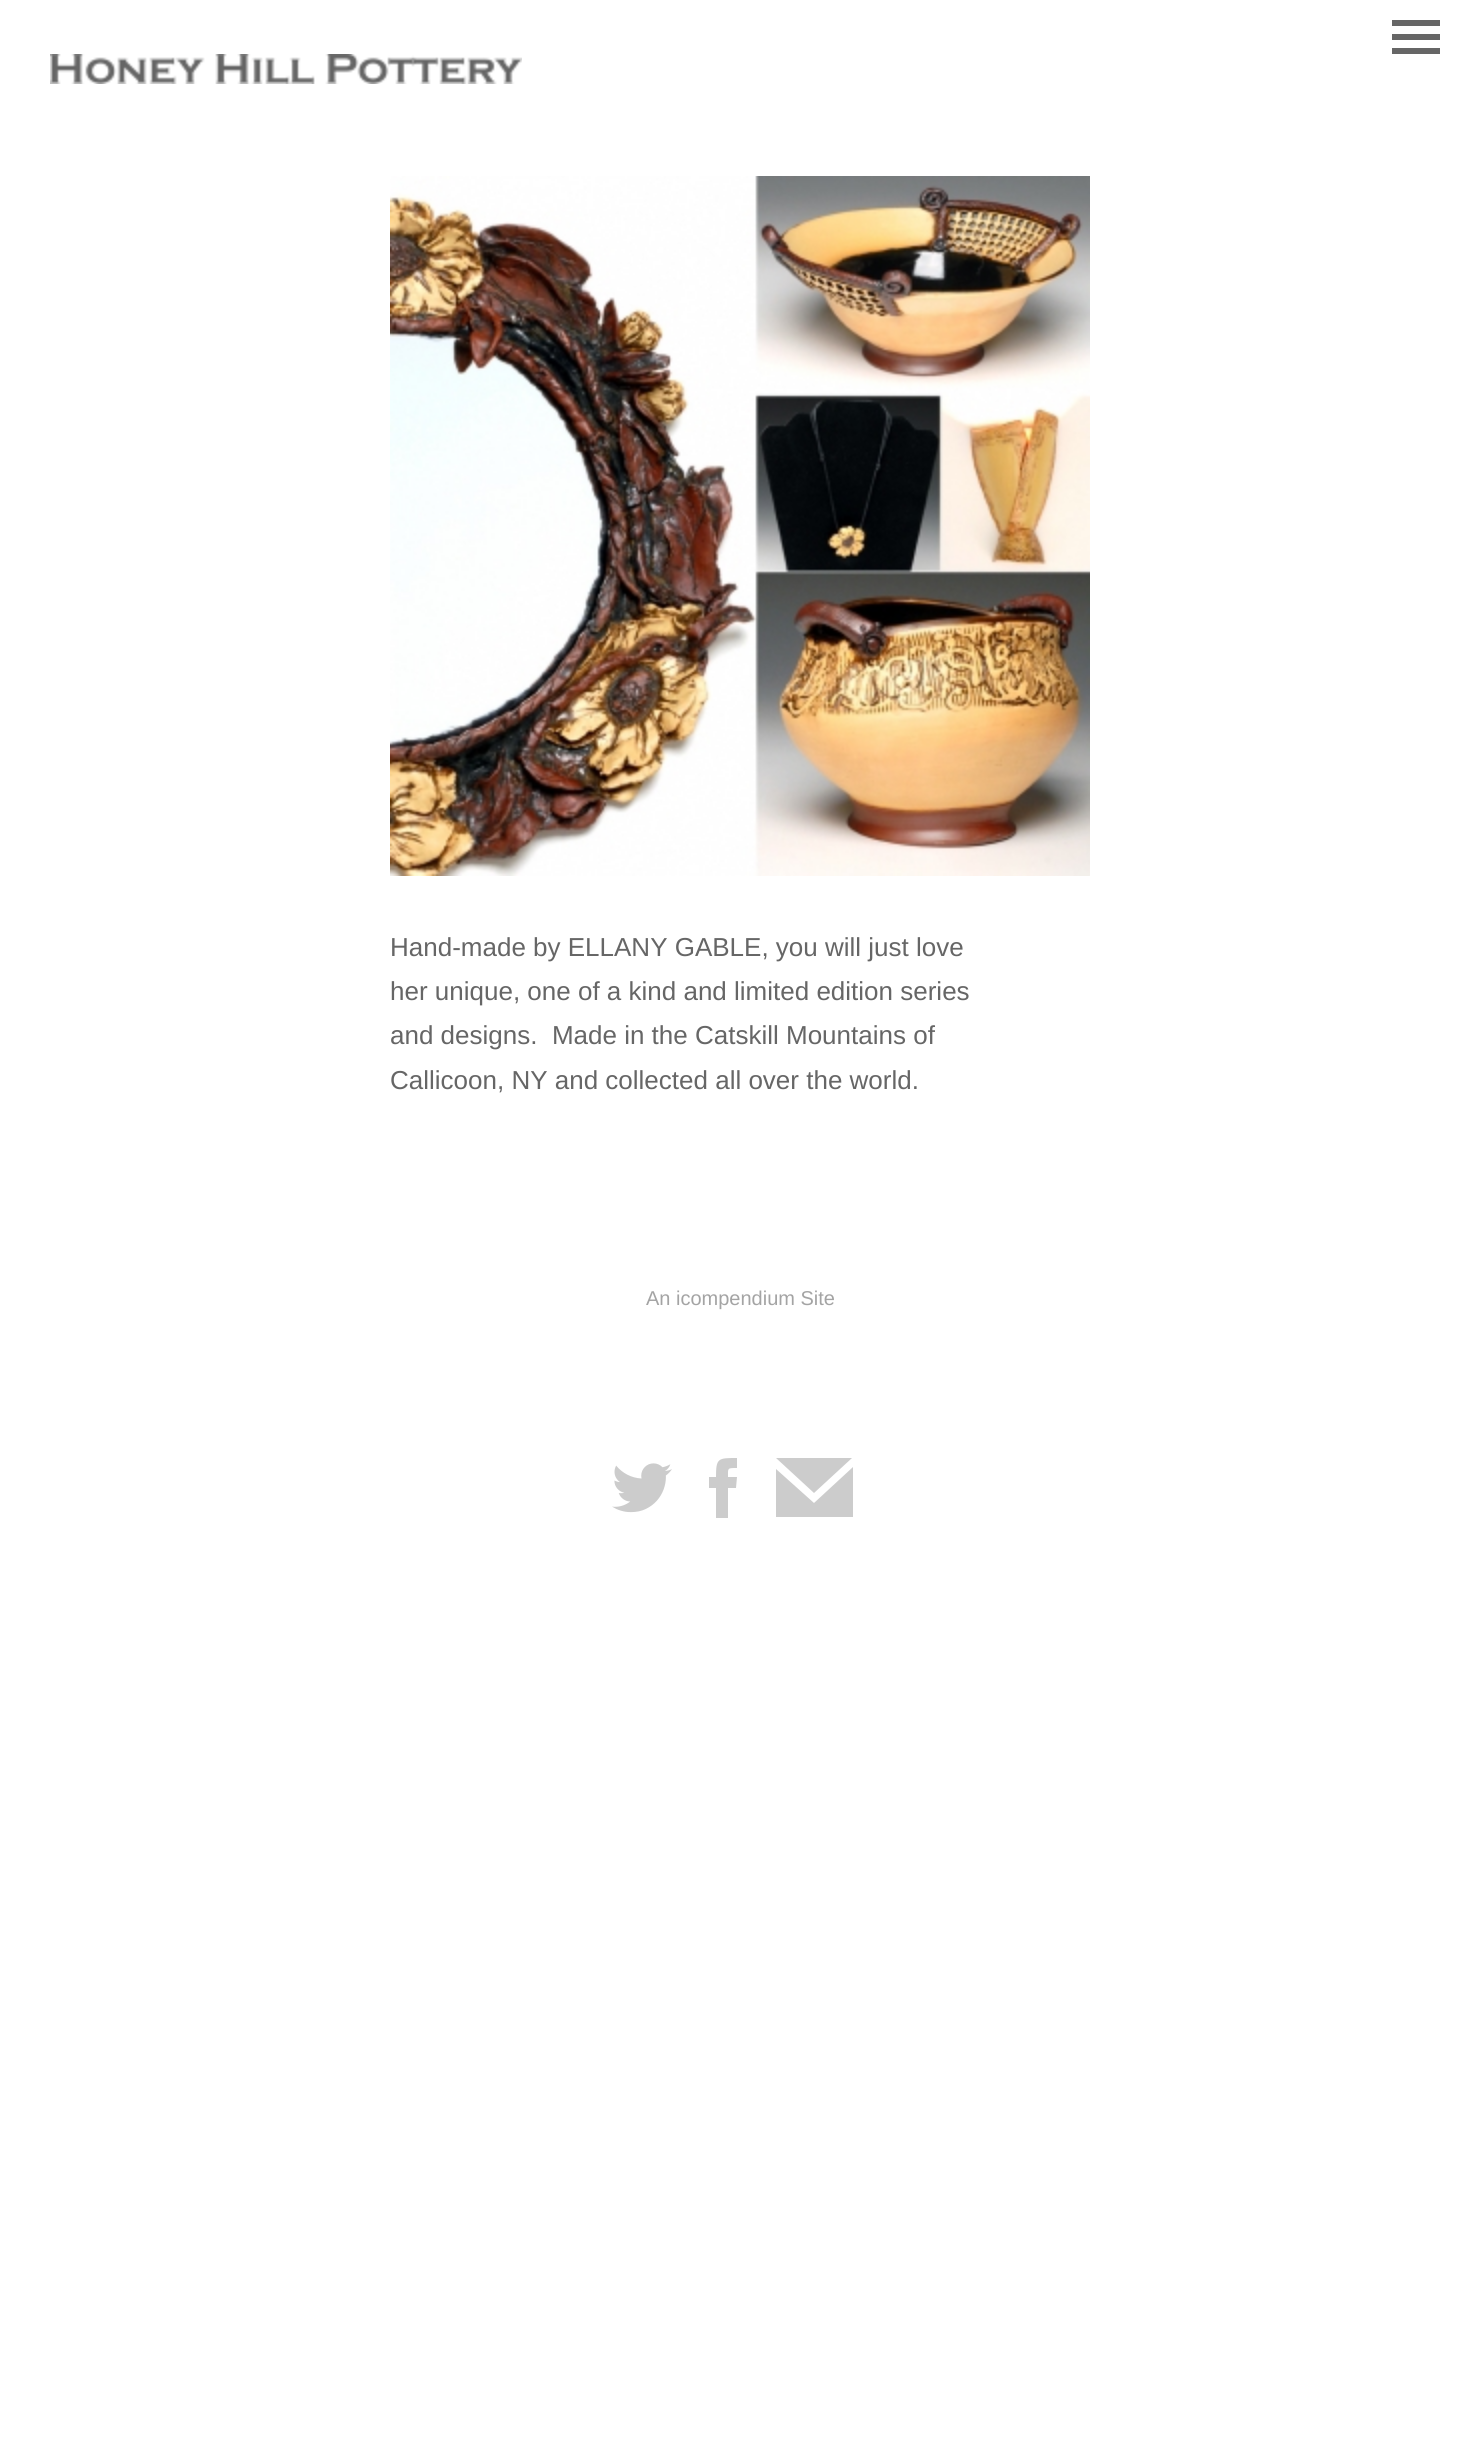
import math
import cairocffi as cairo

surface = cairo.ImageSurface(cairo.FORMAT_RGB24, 1479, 2457)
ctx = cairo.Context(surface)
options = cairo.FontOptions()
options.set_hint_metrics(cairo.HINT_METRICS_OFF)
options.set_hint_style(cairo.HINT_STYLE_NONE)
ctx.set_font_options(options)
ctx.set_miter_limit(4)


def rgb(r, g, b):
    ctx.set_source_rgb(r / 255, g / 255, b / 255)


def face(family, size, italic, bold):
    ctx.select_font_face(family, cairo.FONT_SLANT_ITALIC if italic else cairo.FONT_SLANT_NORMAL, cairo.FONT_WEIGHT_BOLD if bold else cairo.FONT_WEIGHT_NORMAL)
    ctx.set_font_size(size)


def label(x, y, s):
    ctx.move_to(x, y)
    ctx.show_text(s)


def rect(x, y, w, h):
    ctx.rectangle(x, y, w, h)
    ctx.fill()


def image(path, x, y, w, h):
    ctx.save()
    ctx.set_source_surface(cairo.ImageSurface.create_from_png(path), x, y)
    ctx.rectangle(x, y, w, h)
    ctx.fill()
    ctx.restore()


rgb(255, 255, 255)
ctx.paint()
rgb(102, 102, 102)
rect(1392, 20, 48, 6)
rect(1392, 34, 48, 6)
rect(1392, 48, 48, 6)
image('image0.png', 50, 54, 472, 30)
image('image1.png', 390, 176, 700, 700)
face('Liberation Sans', 26, 0, 0)
label(390, 956, 'Hand-made by ELLANY GABLE, you will just love')
label(390, 1000, 'her unique, one of a kind and limited edition series')
label(390, 1044, 'and designs.  Made in the Catskill Mountains of')
label(390, 1089, 'Callicoon, NY and collected all over the world.')
face('Liberation Sans', 20, 0, 0)
rgb(164, 164, 164)
label(646, 1305, 'An icompendium Site')
image('image2.png', 612, 1463, 60, 50)
rgb(204, 204, 204)
ctx.new_path()
ctx.move_to(728, 1518)
ctx.line_to(716, 1518)
ctx.line_to(716, 1488)
ctx.line_to(709, 1488)
ctx.line_to(709, 1477)
ctx.line_to(716, 1477)
ctx.curve_to(716, 1458, 718, 1458, 737, 1458)
ctx.line_to(737, 1468)
ctx.curve_to(727, 1468, 728, 1468, 728, 1477)
ctx.line_to(737, 1477)
ctx.line_to(736, 1488)
ctx.line_to(728, 1488)
ctx.close_path()
ctx.fill()
ctx.new_path()
ctx.move_to(852, 1458)
ctx.line_to(776, 1458)
ctx.line_to(814, 1493)
ctx.close_path()
ctx.move_to(814, 1503)
ctx.line_to(776, 1469)
ctx.line_to(776, 1517)
ctx.line_to(853, 1517)
ctx.line_to(853, 1467)
ctx.close_path()
ctx.fill()
surface.write_to_png('render.png')
